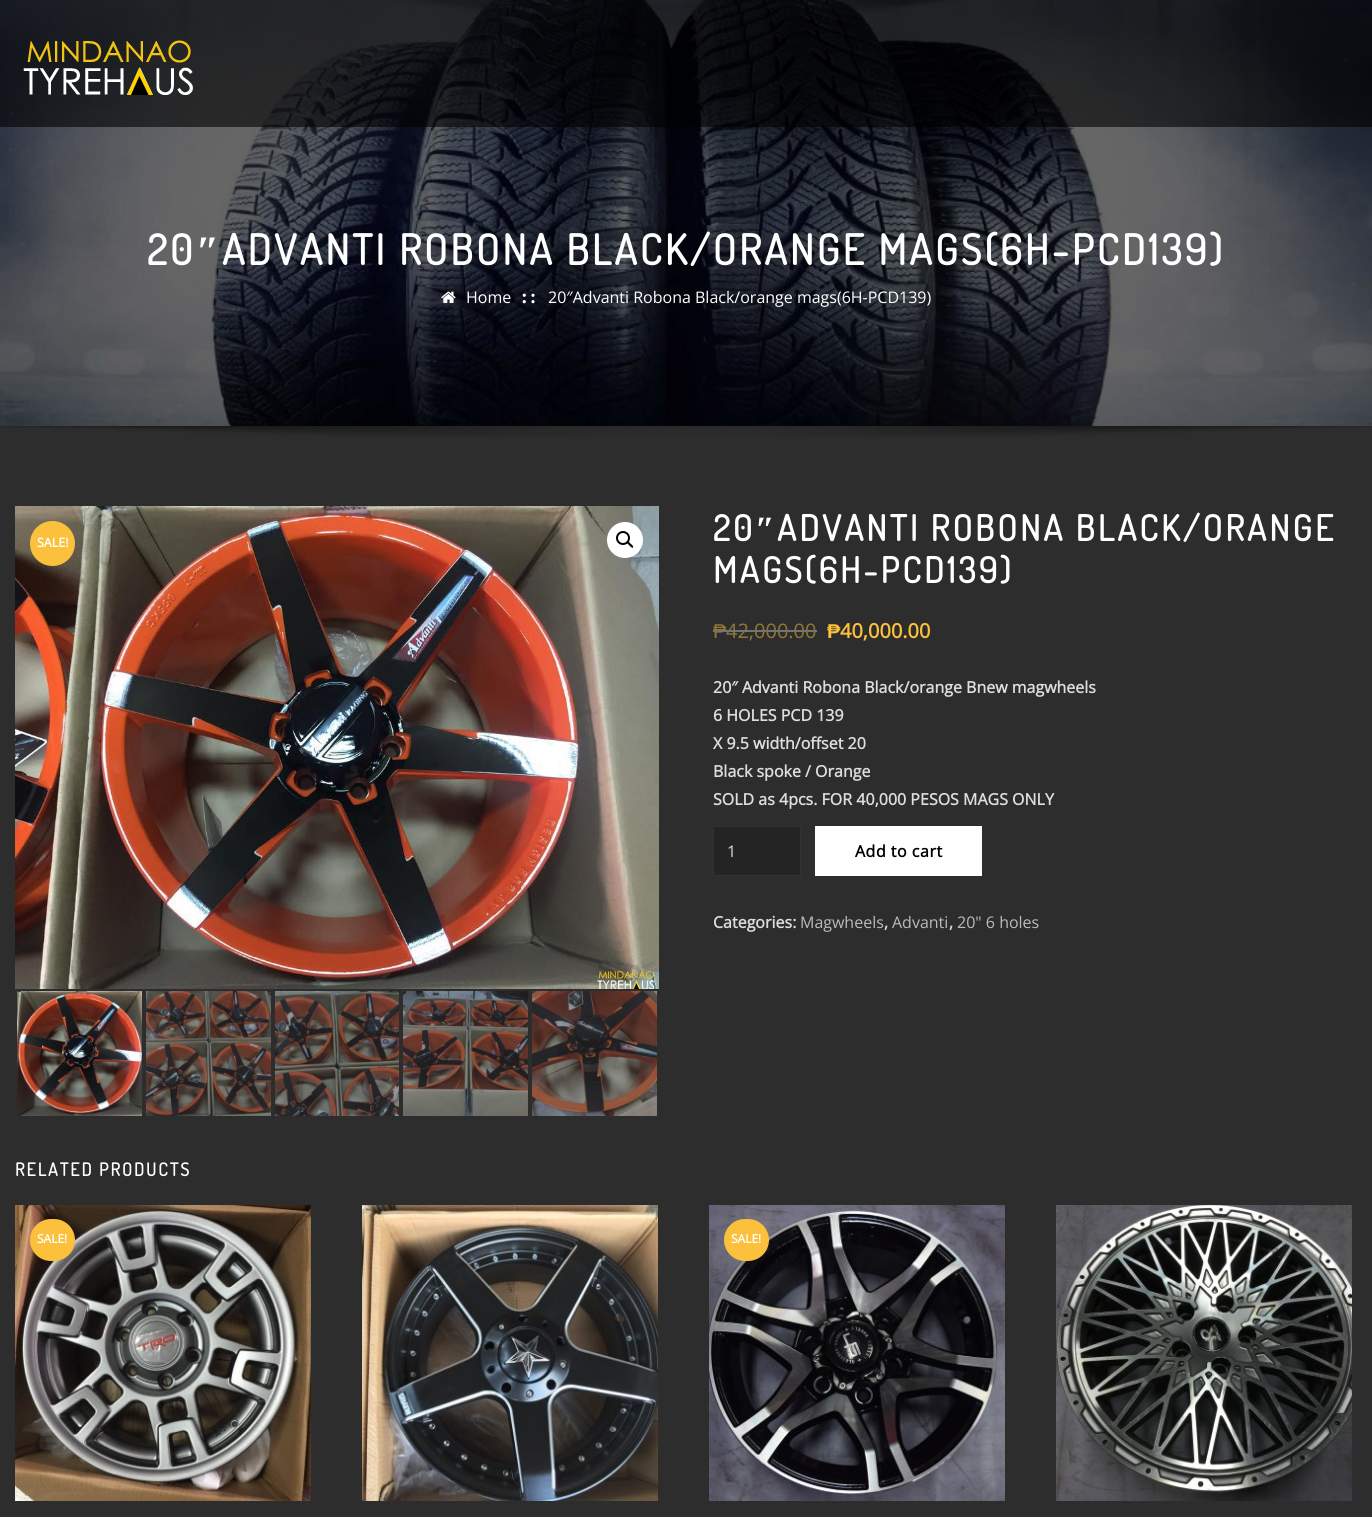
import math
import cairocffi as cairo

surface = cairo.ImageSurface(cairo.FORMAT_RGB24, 1372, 1517)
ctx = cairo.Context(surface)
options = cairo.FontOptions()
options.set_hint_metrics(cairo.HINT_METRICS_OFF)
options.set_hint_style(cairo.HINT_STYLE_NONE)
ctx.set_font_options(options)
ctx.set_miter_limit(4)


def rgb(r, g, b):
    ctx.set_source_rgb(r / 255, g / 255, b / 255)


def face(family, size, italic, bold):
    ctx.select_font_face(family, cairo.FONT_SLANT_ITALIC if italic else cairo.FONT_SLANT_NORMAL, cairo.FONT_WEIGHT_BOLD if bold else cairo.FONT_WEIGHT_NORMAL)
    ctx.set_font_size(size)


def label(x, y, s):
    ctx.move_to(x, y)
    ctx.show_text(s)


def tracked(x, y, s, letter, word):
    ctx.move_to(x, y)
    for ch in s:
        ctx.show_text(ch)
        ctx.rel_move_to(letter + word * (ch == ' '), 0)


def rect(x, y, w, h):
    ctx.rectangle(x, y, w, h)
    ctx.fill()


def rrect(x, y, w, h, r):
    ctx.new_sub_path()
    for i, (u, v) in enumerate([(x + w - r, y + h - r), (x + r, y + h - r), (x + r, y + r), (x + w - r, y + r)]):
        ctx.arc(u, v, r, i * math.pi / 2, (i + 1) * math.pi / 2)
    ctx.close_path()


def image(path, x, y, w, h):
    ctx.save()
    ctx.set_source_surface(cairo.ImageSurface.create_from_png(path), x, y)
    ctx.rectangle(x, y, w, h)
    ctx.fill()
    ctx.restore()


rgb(45, 45, 45)
ctx.paint()
image('image1.png', 0, 0, 1372, 426)
ctx.set_source_rgba(0, 0, 0, 0.6)
rect(0, 0, 1372, 127)
image('image0.png', 23, 40, 170, 55)
face('Dosis', 42, 0, 1)
rgb(255, 255, 255)
tracked(147, 265, '20', 3, 0)
face('Liberation Serif', 42, 0, 1)
tracked(196, 265, '″', 3, 0)
face('Dosis', 42, 0, 1)
tracked(222, 265, 'ADVANTI ROBONA BLACK/ORANGE MAGS(6H-PCD139)', 3, 0)
image('image2.png', 441, 291, 15, 12)
face('Open Sans', 16, 0, 0)
label(466, 303, 'Home')
face('Liberation Serif', 20, 0, 1)
tracked(521, 303, '::', 2, 0)
face('Open Sans', 16, 0, 0)
label(548, 303, '20″Advanti Robona Black/orange mags(6H-PCD139)')
image('image3.png', 0, 426, 1372, 11)
image('image4.png', 15, 506, 644, 483)
ctx.arc(625, 540, 18, 0, 2 * math.pi)
ctx.fill()
ctx.arc(623, 538, 6, 0, 2 * math.pi)
rgb(0, 0, 0)
ctx.stroke()
ctx.new_path()
ctx.move_to(627.5, 542)
ctx.curve_to(628.5, 540.5, 630, 543.5, 631, 544)
ctx.curve_to(631.5, 544.5, 634, 546.5, 633, 547.5)
ctx.curve_to(632, 548.5, 630, 546, 629.5, 545.5)
ctx.curve_to(629, 545, 626, 543, 627.5, 542)
ctx.close_path()
ctx.fill()
image('image5.png', 17, 991, 125, 125)
image('image6.png', 146, 991, 125, 125)
image('image7.png', 275, 991, 124, 125)
image('image8.png', 403, 991, 125, 125)
image('image9.png', 532, 991, 125, 125)
face('Dosis', 35.6, 0, 1)
rgb(255, 255, 255)
tracked(713, 541, '20', 3, 0)
face('Liberation Serif', 35.6, 0, 1)
tracked(755, 541, '″', 3, 0)
face('Dosis', 35.6, 0, 1)
tracked(777, 541, 'ADVANTI ROBONA BLACK/ORANGE', 3, 0)
tracked(713, 583, 'MAGS(6H-PCD139)', 3, 0)
face('Liberation Sans', 20, 0, 0)
rgb(148, 119, 53)
label(713, 638, '₱')
rgb(116, 116, 116)
rect(713, 630, 13, 2)
face('Open Sans', 20, 0, 0)
rgb(148, 119, 53)
label(726, 638, '42,000.00')
rgb(116, 116, 116)
rect(726, 630, 91, 2)
face('Liberation Sans', 20, 0, 1)
rgb(251, 193, 60)
label(827, 638, '₱')
face('Open Sans', 20, 0, 1)
label(840, 638, '40,000.00')
face('Open Sans', 16, 0, 1)
rgb(221, 221, 221)
label(713, 693, '20″ Advanti Robona Black/orange Bnew magwheels')
label(713, 721, '6 HOLES PCD 139')
label(713, 749, 'X 9.5 width/offset 20')
label(713, 777, 'Black spoke / Orange')
label(713, 805, 'SOLD as 4pcs. FOR 40,000 PESOS MAGS ONLY')
rgb(36, 36, 36)
ctx.rectangle(713.5, 826.5, 87, 49)
ctx.fill_preserve()
rgb(51, 51, 51)
ctx.set_line_width(1)
ctx.stroke()
face('Open Sans', 16, 0, 0)
rgb(221, 221, 221)
label(727, 857, '1')
rgb(255, 255, 255)
rect(815, 826, 167, 50)
face('Open Sans', 16, 0, 1)
rgb(0, 0, 0)
tracked(855, 857, 'Add to cart', 0.5, 0)
rgb(221, 221, 221)
label(713, 928, 'Categories:')
face('Open Sans', 16, 0, 0)
rgb(187, 187, 187)
label(800, 928, 'Magwheels')
face('Open Sans', 16, 0, 1)
rgb(221, 221, 221)
label(884, 928, ',')
face('Open Sans', 16, 0, 0)
rgb(187, 187, 187)
label(892, 928, 'Advanti')
face('Open Sans', 16, 0, 1)
rgb(221, 221, 221)
label(949, 928, ',')
face('Open Sans', 16, 0, 0)
rgb(187, 187, 187)
label(957, 928, '20" 6 holes')
rgb(251, 193, 60)
ctx.new_path()
ctx.arc(52.5, 543.5, 22.5, 0, 2 * math.pi)
ctx.fill()
face('Open Sans', 12.5, 0, 1)
rgb(255, 255, 255)
label(37, 547, 'SALE!')
face('Dosis', 18, 0, 1)
tracked(15, 1176, 'RELATED PRODUCTS', 2, 0)
image('image10.png', 15, 1205, 296, 296)
rgb(251, 193, 60)
rrect(30, 1219, 45, 42, 21)
ctx.fill()
face('Open Sans', 12, 0, 1)
rgb(255, 255, 255)
label(37, 1243, 'SALE!')
image('image11.png', 362, 1205, 296, 296)
image('image12.png', 709, 1205, 296, 296)
rgb(251, 193, 60)
rrect(724, 1219, 45, 42, 21)
ctx.fill()
rgb(255, 255, 255)
label(731, 1243, 'SALE!')
image('image13.png', 1056, 1205, 296, 296)
surface.write_to_png('render.png')
